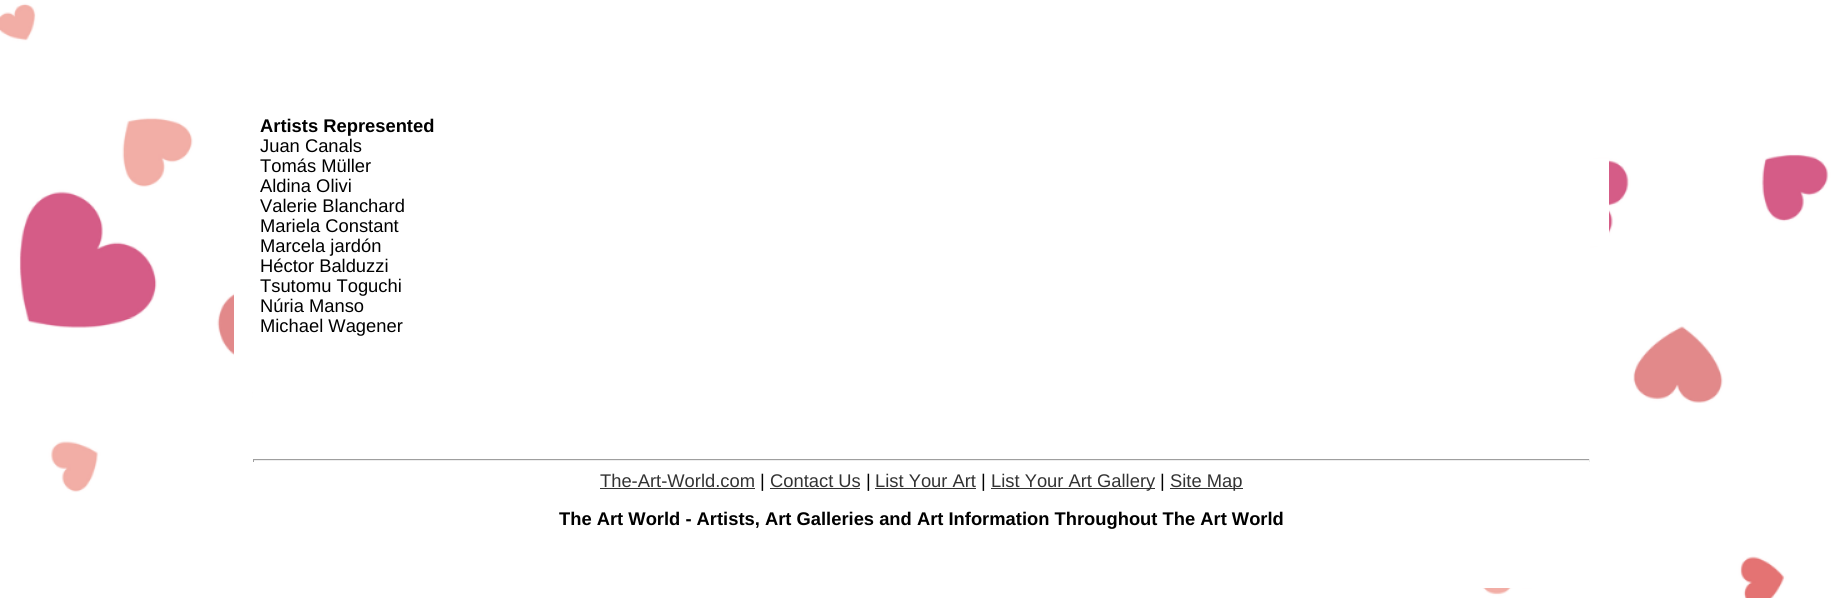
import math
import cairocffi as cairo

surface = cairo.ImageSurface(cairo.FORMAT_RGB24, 1842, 598)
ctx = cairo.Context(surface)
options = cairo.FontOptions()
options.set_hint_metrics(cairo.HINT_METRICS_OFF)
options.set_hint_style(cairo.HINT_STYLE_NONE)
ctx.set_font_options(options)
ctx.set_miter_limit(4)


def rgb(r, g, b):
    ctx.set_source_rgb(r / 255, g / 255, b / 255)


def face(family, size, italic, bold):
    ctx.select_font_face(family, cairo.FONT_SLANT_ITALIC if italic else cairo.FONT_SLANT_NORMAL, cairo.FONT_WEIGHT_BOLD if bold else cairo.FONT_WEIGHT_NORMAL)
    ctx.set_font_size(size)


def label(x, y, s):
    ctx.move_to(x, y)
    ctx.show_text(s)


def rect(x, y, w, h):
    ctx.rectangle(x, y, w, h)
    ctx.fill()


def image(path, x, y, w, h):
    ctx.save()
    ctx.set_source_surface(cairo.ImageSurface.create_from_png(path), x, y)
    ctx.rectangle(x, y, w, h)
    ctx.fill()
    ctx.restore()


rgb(255, 255, 255)
ctx.paint()
image('image0.png', 0, 0, 1842, 598)
rgb(255, 255, 255)
rect(253, 0, 1337, 588)
face('Liberation Sans', 18.35, 0, 1)
rgb(0, 0, 0)
label(260, 132, 'Artists Represented')
face('Liberation Sans', 18.35, 0, 0)
label(260, 152, 'Juan Canals')
label(260, 172, 'Tomás Müller')
label(260, 192, 'Aldina Olivi')
label(260, 212, 'Valerie Blanchard')
label(260, 232, 'Mariela Constant')
label(260, 252, 'Marcela jardón')
label(260, 272, 'Héctor Balduzzi')
label(260, 292, 'Tsutomu Toguchi')
label(260, 312, 'Núria Manso')
label(260, 332, 'Michael Wagener')
rgb(159, 159, 159)
rect(253, 459, 1337, 1)
rgb(238, 238, 238)
rect(1589, 459, 1, 3)
rect(253, 460, 1337, 1)
rgb(159, 159, 159)
rect(253, 459, 1, 3)
rgb(51, 51, 51)
label(600, 487, 'The-Art-World.com')
rect(600, 488, 155, 1)
rgb(0, 0, 0)
label(760, 487, '|')
rgb(51, 51, 51)
label(770, 487, 'Contact Us')
rect(770, 488, 90, 1)
rgb(0, 0, 0)
label(866, 487, '|')
rgb(51, 51, 51)
label(875, 487, 'List Your Art')
rect(875, 488, 101, 1)
rgb(0, 0, 0)
label(981, 487, '|')
rgb(51, 51, 51)
rect(991, 488, 164, 1)
label(991, 487, 'List Your Art Gallery')
rgb(0, 0, 0)
label(1160, 487, '|')
rgb(51, 51, 51)
rect(1170, 488, 73, 1)
label(1170, 487, 'Site Map')
face('Liberation Sans', 18.35, 0, 1)
rgb(0, 0, 0)
label(559, 525, 'The Art World - Artists, Art Galleries and Art Information Throughout The Art World')
rgb(255, 255, 255)
rect(1590, 159, 19, 87)
rect(234, 287, 19, 105)
surface.write_to_png('render.png')
